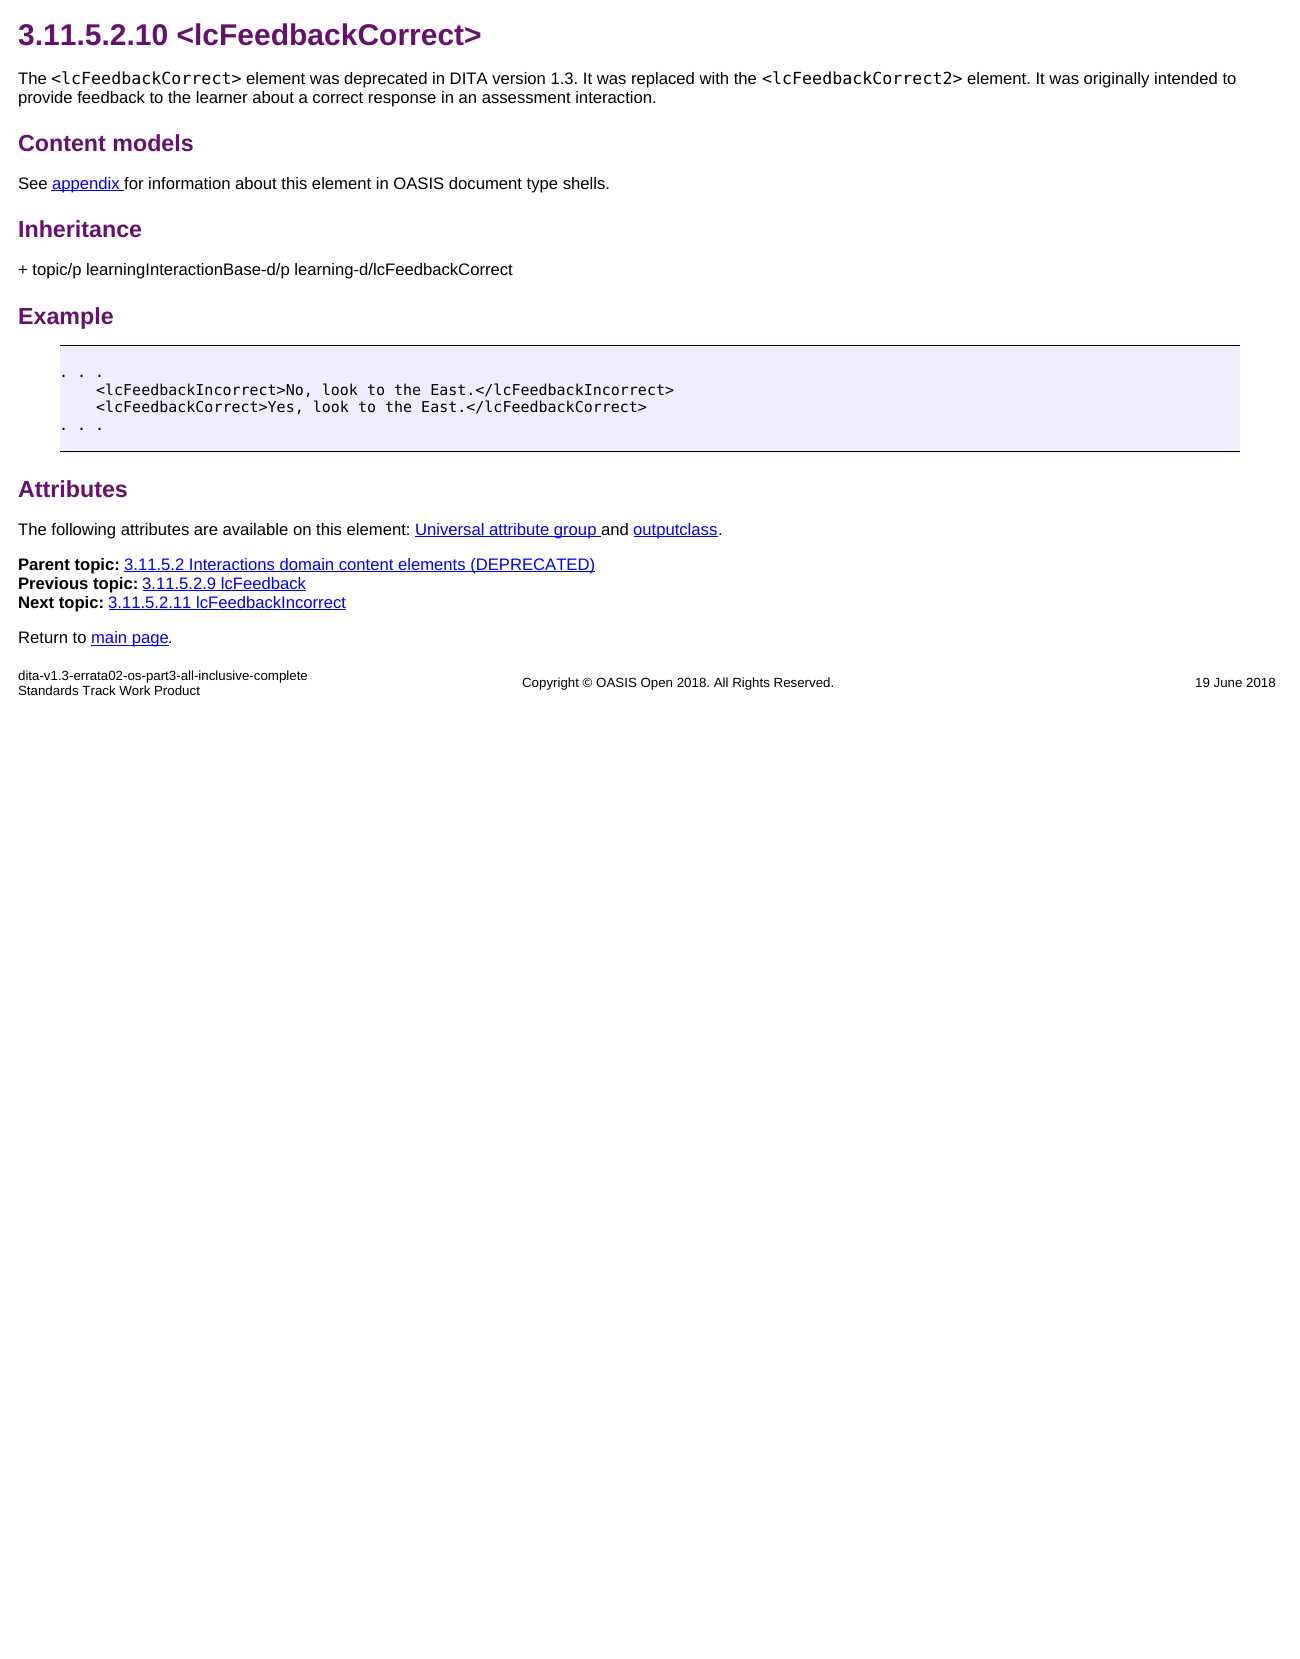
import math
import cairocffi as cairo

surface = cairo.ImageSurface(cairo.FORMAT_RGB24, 1300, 1659)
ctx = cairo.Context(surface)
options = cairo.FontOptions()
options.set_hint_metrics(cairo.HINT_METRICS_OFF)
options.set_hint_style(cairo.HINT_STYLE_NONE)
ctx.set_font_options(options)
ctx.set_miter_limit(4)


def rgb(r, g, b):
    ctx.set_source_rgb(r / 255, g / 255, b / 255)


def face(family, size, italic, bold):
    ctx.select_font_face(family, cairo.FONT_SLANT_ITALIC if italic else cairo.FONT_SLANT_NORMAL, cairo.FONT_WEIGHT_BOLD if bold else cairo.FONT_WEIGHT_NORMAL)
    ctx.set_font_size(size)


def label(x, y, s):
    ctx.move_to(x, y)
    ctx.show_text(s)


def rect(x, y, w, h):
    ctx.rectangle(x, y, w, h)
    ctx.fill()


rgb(255, 255, 255)
ctx.paint()
face('Liberation Sans', 30, 0, 1)
rgb(102, 17, 109)
label(18, 45, '3.11.5.2.10 <lcFeedbackCorrect>')
face('Liberation Sans', 16.65, 0, 0)
rgb(0, 0, 0)
label(18, 84, 'The')
face('DejaVu Sans Mono', 16.65, 0, 0)
label(51, 84, '<lcFeedbackCorrect>')
face('Liberation Sans', 16.65, 0, 0)
label(246, 84, 'element was deprecated in DITA version 1.3. It was replaced with the')
face('DejaVu Sans Mono', 16.65, 0, 0)
label(762, 84, '<lcFeedbackCorrect2>')
face('Liberation Sans', 16.65, 0, 0)
label(967, 84, 'element. It was originally intended to')
label(18, 103, 'provide feedback to the learner about a correct response in an assessment interaction.')
face('Liberation Sans', 23.25, 0, 1)
rgb(102, 17, 109)
label(18, 151, 'Content models')
face('Liberation Sans', 16.65, 0, 0)
rgb(0, 0, 0)
label(18, 189, 'See')
rgb(0, 0, 238)
rect(51, 190, 73, 1)
label(52, 189, 'appendix')
rgb(0, 0, 0)
label(124, 189, 'for information about this element in OASIS document type shells.')
face('Liberation Sans', 23.25, 0, 1)
rgb(102, 17, 109)
label(18, 237, 'Inheritance')
face('Liberation Sans', 16.65, 0, 0)
rgb(0, 0, 0)
label(18, 275, '+ topic/p learningInteractionBase-d/p learning-d/lcFeedbackCorrect')
face('Liberation Sans', 23.25, 0, 1)
rgb(102, 17, 109)
label(18, 324, 'Example')
rgb(238, 238, 255)
rect(60, 346, 1180, 107)
rgb(0, 0, 0)
rect(60, 345, 1180, 1)
rect(60, 451, 1180, 1)
face('DejaVu Sans Mono', 15, 0, 0)
label(59, 377, '. . .')
label(96, 395, '<lcFeedbackIncorrect>No, look to the East.</lcFeedbackIncorrect>')
label(96, 412, '<lcFeedbackCorrect>Yes, look to the East.</lcFeedbackCorrect>')
label(59, 430, '. . .')
face('Liberation Sans', 23.25, 0, 1)
rgb(102, 17, 109)
label(18, 497, 'Attributes')
face('Liberation Sans', 16.65, 0, 0)
rgb(0, 0, 0)
label(18, 535, 'The following attributes are available on this element:')
rgb(0, 0, 238)
rect(415, 536, 186, 1)
label(415, 535, 'Universal attribute group')
rgb(0, 0, 0)
label(601, 535, 'and')
rgb(0, 0, 238)
rect(634, 536, 84, 1)
label(633, 535, 'outputclass')
rgb(0, 0, 0)
label(718, 535, '.')
face('Liberation Sans', 16.65, 0, 1)
label(18, 570, 'Parent topic:')
rgb(0, 0, 238)
rect(124, 571, 471, 1)
face('Liberation Sans', 16.65, 0, 0)
label(124, 570, '3.11.5.2 Interactions domain content elements (DEPRECATED)')
face('Liberation Sans', 16.65, 0, 1)
rgb(0, 0, 0)
label(18, 589, 'Previous topic:')
face('Liberation Sans', 16.65, 0, 0)
rgb(0, 0, 238)
label(142, 589, '3.11.5.2.9 lcFeedback')
rect(143, 590, 163, 1)
face('Liberation Sans', 16.65, 0, 1)
rgb(0, 0, 0)
label(18, 608, 'Next topic:')
face('Liberation Sans', 16.65, 0, 0)
rgb(0, 0, 238)
label(108, 608, '3.11.5.2.11 lcFeedbackIncorrect')
rect(109, 609, 237, 1)
rgb(0, 0, 0)
label(18, 643, 'Return to')
rgb(0, 0, 238)
rect(91, 645, 78, 1)
label(91, 643, 'main page')
rgb(0, 0, 0)
label(168, 643, '.')
face('Liberation Sans', 13.3, 0, 0)
label(18, 680, 'dita-v1.3-errata02-os-part3-all-inclusive-complete')
label(18, 695, 'Standards Track Work Product')
label(522, 687, 'Copyright © OASIS Open 2018. All Rights Reserved.')
label(1195, 687, '19 June 2018')
surface.write_to_png('render.png')
